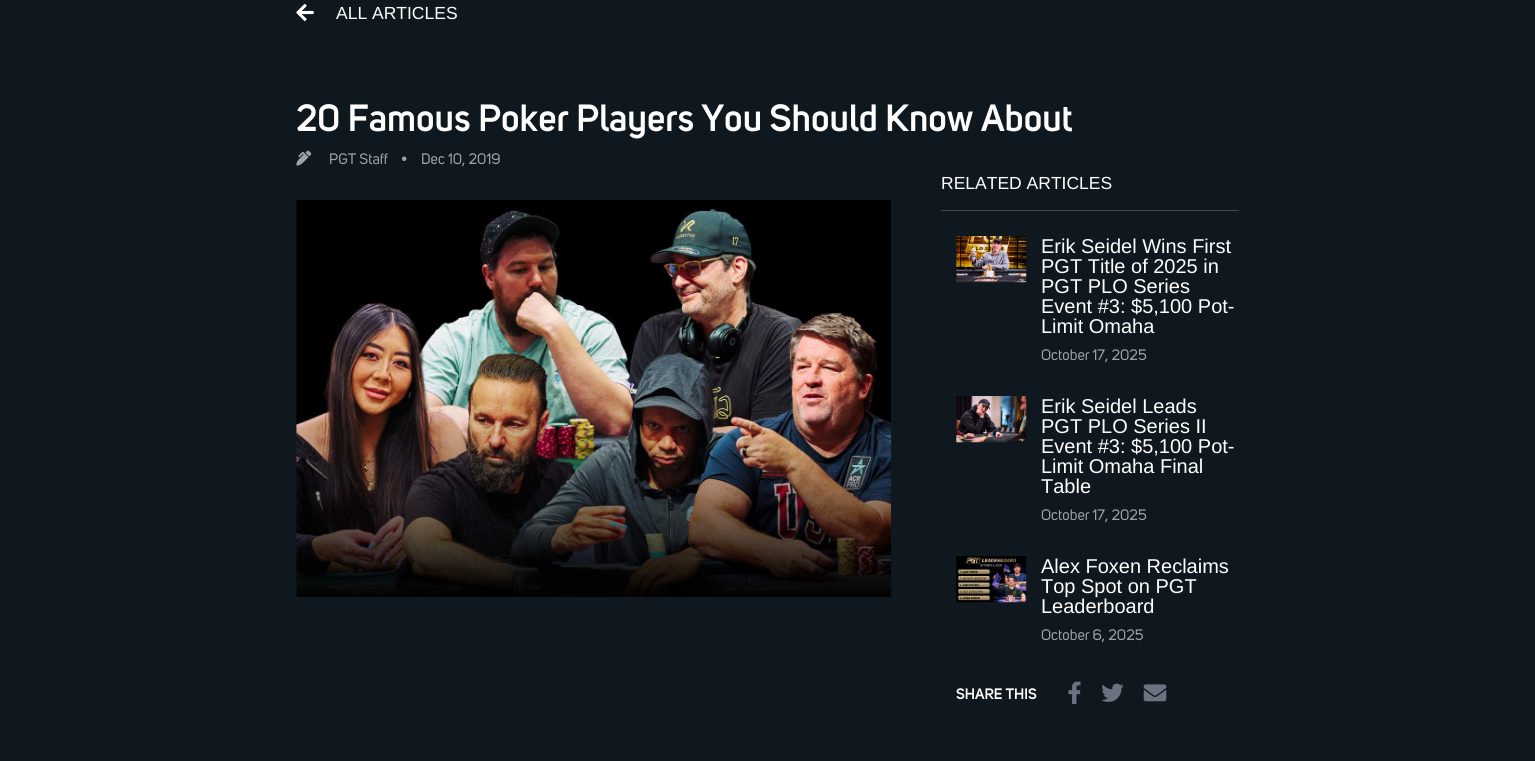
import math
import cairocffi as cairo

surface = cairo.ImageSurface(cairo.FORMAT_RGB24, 1535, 761)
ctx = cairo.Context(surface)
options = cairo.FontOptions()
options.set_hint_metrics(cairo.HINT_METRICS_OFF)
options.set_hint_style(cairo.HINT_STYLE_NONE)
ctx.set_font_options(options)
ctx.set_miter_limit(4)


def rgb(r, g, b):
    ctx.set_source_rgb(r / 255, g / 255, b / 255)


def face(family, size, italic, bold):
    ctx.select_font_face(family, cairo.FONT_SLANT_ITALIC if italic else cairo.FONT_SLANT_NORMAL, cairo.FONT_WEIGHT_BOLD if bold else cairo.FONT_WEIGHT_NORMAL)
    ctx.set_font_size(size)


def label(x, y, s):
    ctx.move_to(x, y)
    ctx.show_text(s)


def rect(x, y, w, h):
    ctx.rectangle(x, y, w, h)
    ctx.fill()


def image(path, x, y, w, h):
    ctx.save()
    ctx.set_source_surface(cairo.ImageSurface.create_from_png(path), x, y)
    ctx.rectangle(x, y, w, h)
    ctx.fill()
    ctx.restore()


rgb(16, 24, 31)
ctx.paint()
image('image0.png', 296, 4, 18, 17)
face('Liberation Sans', 17.5, 0, 0)
rgb(255, 255, 255)
label(336, 19, 'ALL ARTICLES')
face('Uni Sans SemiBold', 37.5, 0, 0)
label(296, 131, '20 Famous Poker Players You Should Know About')
image('image1.png', 296, 150, 16, 16)
face('Uni Sans', 15, 0, 0)
rgb(156, 163, 175)
label(329, 164, 'PGT Staff')
label(401, 164, '•')
label(421, 164, 'Dec 10, 2019')
image('image2.png', 296, 200, 596, 397)
rgb(67, 73, 79)
rect(941, 210, 298, 1)
face('Liberation Sans', 17.5, 0, 0)
rgb(255, 255, 255)
label(941, 189, 'RELATED ARTICLES')
image('image3.png', 956, 236, 71, 47)
face('Liberation Sans', 20, 0, 0)
label(1041, 253, 'Erik Seidel Wins First')
label(1041, 273, 'PGT Title of 2025 in')
label(1041, 293, 'PGT PLO Series')
label(1041, 313, 'Event #3: $5,100 Pot-')
label(1041, 333, 'Limit Omaha')
face('Uni Sans', 15, 0, 0)
rgb(156, 163, 175)
label(1041, 360, 'October 17, 2025')
image('image4.png', 956, 396, 71, 47)
face('Liberation Sans', 20, 0, 0)
rgb(255, 255, 255)
label(1041, 413, 'Erik Seidel Leads')
label(1041, 433, 'PGT PLO Series II')
label(1041, 453, 'Event #3: $5,100 Pot-')
label(1041, 473, 'Limit Omaha Final')
label(1041, 493, 'Table')
face('Uni Sans', 15, 0, 0)
rgb(156, 163, 175)
label(1041, 520, 'October 17, 2025')
image('image5.png', 956, 556, 71, 47)
face('Liberation Sans', 20, 0, 0)
rgb(255, 255, 255)
label(1041, 573, 'Alex Foxen Reclaims')
label(1041, 593, 'Top Spot on PGT')
label(1041, 613, 'Leaderboard')
face('Uni Sans', 15, 0, 0)
rgb(156, 163, 175)
label(1041, 640, 'October 6, 2025')
face('Uni Sans SemiBold', 15, 0, 0)
rgb(255, 255, 255)
label(956, 699, 'SHARE THIS')
image('image6.png', 1068, 681, 13, 24)
image('image7.png', 1101, 683, 23, 19)
image('image8.png', 1143, 684, 24, 18)
surface.write_to_png('render.png')
